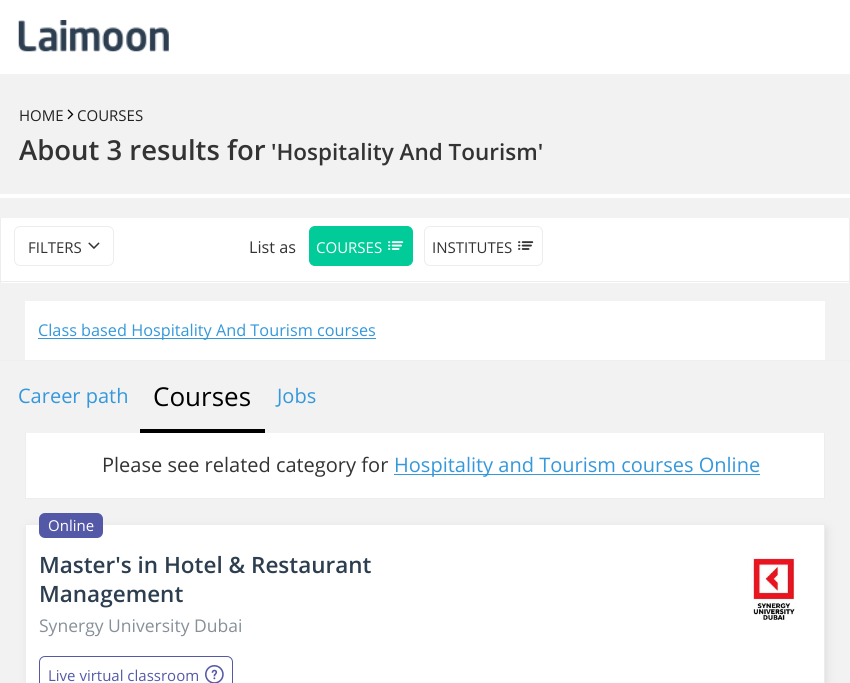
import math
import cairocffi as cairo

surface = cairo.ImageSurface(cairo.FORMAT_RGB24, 850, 683)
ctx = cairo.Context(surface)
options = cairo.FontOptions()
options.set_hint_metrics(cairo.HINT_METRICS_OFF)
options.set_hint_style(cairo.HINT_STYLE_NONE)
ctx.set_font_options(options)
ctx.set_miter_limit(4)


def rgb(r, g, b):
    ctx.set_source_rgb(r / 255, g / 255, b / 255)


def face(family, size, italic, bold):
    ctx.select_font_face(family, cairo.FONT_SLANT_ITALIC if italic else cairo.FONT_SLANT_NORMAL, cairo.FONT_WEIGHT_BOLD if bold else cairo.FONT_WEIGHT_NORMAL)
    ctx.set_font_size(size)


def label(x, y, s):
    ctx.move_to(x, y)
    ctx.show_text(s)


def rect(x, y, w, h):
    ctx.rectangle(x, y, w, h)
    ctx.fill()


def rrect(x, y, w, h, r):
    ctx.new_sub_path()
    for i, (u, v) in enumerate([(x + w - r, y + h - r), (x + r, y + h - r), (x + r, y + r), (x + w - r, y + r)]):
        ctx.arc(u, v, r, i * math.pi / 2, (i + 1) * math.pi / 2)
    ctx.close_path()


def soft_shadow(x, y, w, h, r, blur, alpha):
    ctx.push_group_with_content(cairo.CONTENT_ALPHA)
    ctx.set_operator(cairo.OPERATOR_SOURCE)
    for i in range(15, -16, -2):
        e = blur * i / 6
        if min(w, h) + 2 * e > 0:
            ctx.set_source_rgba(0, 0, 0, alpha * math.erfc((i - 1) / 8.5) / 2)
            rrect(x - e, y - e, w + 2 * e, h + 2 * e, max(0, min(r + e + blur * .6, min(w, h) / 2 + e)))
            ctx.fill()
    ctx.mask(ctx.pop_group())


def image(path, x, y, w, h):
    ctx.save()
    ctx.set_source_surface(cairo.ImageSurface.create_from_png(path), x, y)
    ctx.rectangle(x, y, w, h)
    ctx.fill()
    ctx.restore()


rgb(255, 255, 255)
ctx.paint()
image('image0.png', 18, 20, 151, 32)
rgb(242, 242, 242)
rect(0, 74, 850, 609)
face('Open Sans', 15, 0, 0)
rgb(34, 34, 34)
label(19, 121, 'HOME')
image('image1.png', 67, 109, 7, 11)
label(77, 121, 'COURSES')
face('Open Sans SemiBold', 27.5, 0, 0)
rgb(51, 51, 51)
label(19, 160, 'About 3 results for')
face('Open Sans SemiBold', 22.5, 0, 0)
label(271, 160, '\'Hospitality And Tourism\'')
rgb(255, 255, 255)
rect(0, 194, 850, 4)
rect(1, 218, 848, 65)
rgb(237, 237, 237)
rect(849, 218, 1, 65)
rect(0, 281, 850, 1)
rect(0, 218, 1, 65)
rrect(14.5, 226.5, 99, 39, 5.5)
ctx.set_line_width(1)
ctx.stroke()
face('Open Sans', 15, 0, 0)
rgb(51, 51, 51)
label(28, 253, 'FILTERS')
image('image2.png', 88, 242, 12, 7)
face('Open Sans', 16.25, 0, 0)
label(249, 253, 'List as')
rgb(1, 204, 153)
rrect(309.5, 226.5, 103, 39, 5.5)
ctx.fill_preserve()
ctx.stroke()
face('Open Sans', 15, 0, 0)
rgb(255, 255, 255)
label(316, 253, 'COURSES')
image('image3.png', 388, 241, 16, 9)
rrect(424.5, 226.5, 118, 39, 5.5)
rgb(237, 237, 237)
ctx.stroke()
rgb(51, 51, 51)
label(432, 253, 'INSTITUTES')
image('image4.png', 518, 241, 16, 9)
rgb(255, 255, 255)
rect(25, 301, 800, 59)
rgb(52, 152, 219)
rect(38, 338, 338, 1)
face('Open Sans', 16.25, 0, 0)
label(38, 336, 'Class based Hospitality And Tourism courses')
rgb(236, 240, 241)
rect(0, 360, 850, 1)
face('Open Sans', 20, 0, 0)
rgb(52, 152, 219)
label(18, 403, 'Career path')
rgb(0, 0, 0)
rect(140, 429, 125, 4)
face('Open Sans', 26, 0, 0)
label(153, 406, 'Courses')
face('Open Sans', 20, 0, 0)
rgb(52, 152, 219)
label(277, 403, 'Jobs')
rgb(255, 255, 255)
rect(26, 433, 798, 65)
rgb(237, 237, 237)
rect(824, 433, 1, 66)
rect(25, 498, 800, 1)
rect(25, 433, 1, 66)
rgb(51, 51, 51)
label(102, 472, 'Please see related category for')
rgb(52, 152, 219)
rect(394, 474, 366, 1)
label(394, 472, 'Hospitality and Tourism courses Online')
rgb(214, 214, 214)
soft_shadow(30, 529, 795, 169, 0, 5, 1)
rgb(255, 255, 255)
ctx.rectangle(25.5, 524.5, 799, 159)
ctx.fill_preserve()
rgb(237, 237, 237)
ctx.stroke()
rgb(84, 89, 167)
rrect(39, 513, 64, 25, 6)
ctx.fill()
face('Open Sans', 15, 0, 0)
rgb(255, 255, 255)
label(48, 531, 'Online')
face('Open Sans SemiBold', 22.5, 0, 0)
rgb(44, 62, 79)
label(39, 573, 'Master\'s in Hotel & Restaurant')
label(39, 602, 'Management')
face('Open Sans', 17.5, 0, 0)
rgb(135, 144, 152)
label(39, 632, 'Synergy University Dubai')
rrect(39.5, 656.5, 193, 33, 5.5)
rgb(84, 89, 167)
ctx.stroke()
face('Open Sans', 15, 0, 0)
label(48, 681, 'Live virtual classroom')
image('image5.png', 205, 665, 19, 18)
image('image6.png', 751, 555, 45, 65)
surface.write_to_png('render.png')
